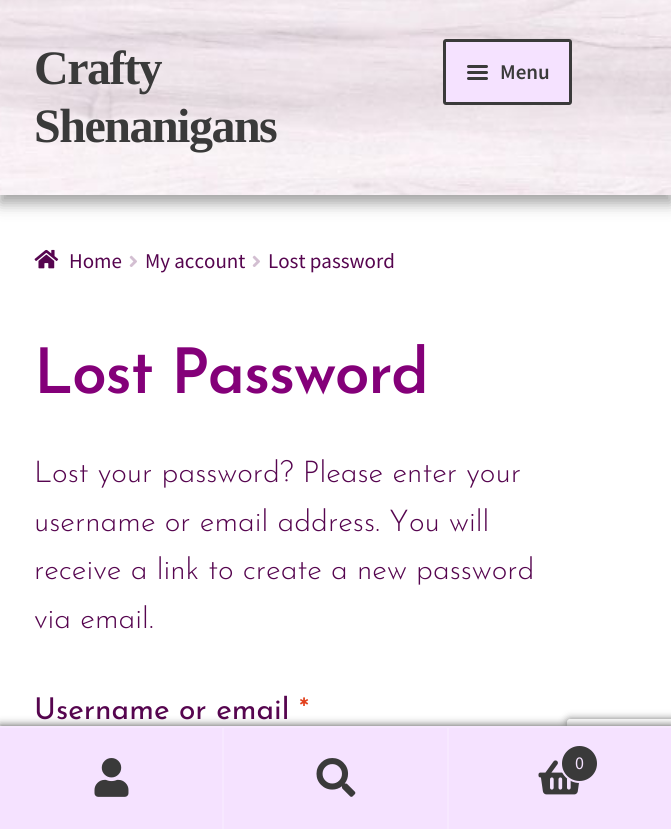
import math
import cairocffi as cairo

surface = cairo.ImageSurface(cairo.FORMAT_RGB24, 671, 829)
ctx = cairo.Context(surface)
options = cairo.FontOptions()
options.set_hint_metrics(cairo.HINT_METRICS_OFF)
options.set_hint_style(cairo.HINT_STYLE_NONE)
ctx.set_font_options(options)
ctx.set_miter_limit(4)


def rgb(r, g, b):
    ctx.set_source_rgb(r / 255, g / 255, b / 255)


def face(family, size, italic, bold):
    ctx.select_font_face(family, cairo.FONT_SLANT_ITALIC if italic else cairo.FONT_SLANT_NORMAL, cairo.FONT_WEIGHT_BOLD if bold else cairo.FONT_WEIGHT_NORMAL)
    ctx.set_font_size(size)


def label(x, y, s):
    ctx.move_to(x, y)
    ctx.show_text(s)


def tracked(x, y, s, letter, word):
    ctx.move_to(x, y)
    for ch in s:
        ctx.show_text(ch)
        ctx.rel_move_to(letter + word * (ch == ' '), 0)


def rect(x, y, w, h):
    ctx.rectangle(x, y, w, h)
    ctx.fill()


def rrect(x, y, w, h, r):
    ctx.new_sub_path()
    for i, (u, v) in enumerate([(x + w - r, y + h - r), (x + r, y + h - r), (x + r, y + r), (x + w - r, y + r)]):
        ctx.arc(u, v, r, i * math.pi / 2, (i + 1) * math.pi / 2)
    ctx.close_path()


def soft_shadow(x, y, w, h, r, blur, alpha):
    ctx.push_group_with_content(cairo.CONTENT_ALPHA)
    ctx.set_operator(cairo.OPERATOR_SOURCE)
    for i in range(15, -16, -2):
        e = blur * i / 6
        if min(w, h) + 2 * e > 0:
            ctx.set_source_rgba(0, 0, 0, alpha * math.erfc((i - 1) / 8.5) / 2)
            rrect(x - e, y - e, w + 2 * e, h + 2 * e, max(0, min(r + e + blur * .6, min(w, h) / 2 + e)))
            ctx.fill()
    ctx.mask(ctx.pop_group())


def image(path, x, y, w, h):
    ctx.save()
    ctx.set_source_surface(cairo.ImageSurface.create_from_png(path), x, y)
    ctx.rectangle(x, y, w, h)
    ctx.fill()
    ctx.restore()


rgb(255, 255, 255)
ctx.paint()
rgb(63, 63, 63)
soft_shadow(0, 8, 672, 195, 0, 7.5, 0.5)
image('image0.png', 0, 0, 671, 195)
face('Liberation Serif', 48, 0, 1)
rgb(58, 58, 58)
tracked(34, 84, 'Crafty', -1.5, 0)
tracked(34, 142, 'Shenanigans', -1.5, 0)
rgb(245, 226, 255)
rrect(444.5, 40.5, 126, 63, 1.5)
ctx.fill_preserve()
rgb(58, 58, 58)
ctx.set_line_width(3)
ctx.stroke()
rrect(467, 65, 21, 3, 1.5)
ctx.fill()
rrect(467, 71, 21, 3, 1.5)
ctx.fill()
face('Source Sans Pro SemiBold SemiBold', 21, 0, 0)
label(500, 79, 'Menu')
rrect(467, 77, 21, 3, 1.5)
ctx.fill()
image('image1.png', 34, 249, 25, 20)
face('Source Sans Pro', 21, 0, 0)
rgb(86, 5, 79)
label(69, 268, 'Home')
image('image2.png', 129, 255, 8, 12)
label(145, 268, 'My account')
image('image2.png', 252, 255, 8, 12)
label(268, 268, 'Lost password')
face('Josefin Sans SemiBold', 62.75, 0, 0)
rgb(132, 0, 121)
tracked(34, 393, 'Lost Password', -1.5, 0)
face('Josefin Sans Light', 30, 0, 0)
rgb(86, 5, 79)
label(34, 482, 'Lost your password? Please enter your')
label(34, 531, 'username or email address. You will')
label(34, 579, 'receive a link to create a new password')
label(34, 628, 'via email.')
face('Josefin Sans', 30, 0, 0)
label(34, 719, 'Username or email')
rgb(226, 64, 28)
label(299, 719, '*')
rgb(0, 0, 0)
soft_shadow(0, 726, 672, 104, 0, 4.5, 0.7)
ctx.save()
ctx.set_fill_rule(cairo.FILL_RULE_EVEN_ODD)
ctx.new_path()
ctx.move_to(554, 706)
ctx.line_to(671, 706)
ctx.line_to(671, 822)
ctx.line_to(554, 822)
ctx.close_path()
ctx.move_to(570, 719)
ctx.line_to(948, 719)
ctx.curve_to(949.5, 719, 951, 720.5, 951, 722)
ctx.line_to(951, 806)
ctx.curve_to(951, 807.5, 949.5, 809, 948, 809)
ctx.line_to(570, 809)
ctx.curve_to(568.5, 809, 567, 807.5, 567, 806)
ctx.line_to(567, 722)
ctx.curve_to(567, 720.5, 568.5, 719, 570, 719)
ctx.close_path()
ctx.clip()
rgb(128, 128, 128)
soft_shadow(567, 719, 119, 90, 3, 4, 1)
ctx.restore()
rgb(247, 232, 255)
rect(0, 726, 671, 2)
rgb(245, 226, 255)
rect(0, 728, 222, 101)
rgb(247, 232, 255)
rect(222, 728, 2, 101)
image('image3.png', 94, 758, 35, 39)
rgb(245, 226, 255)
rect(224, 728, 223, 101)
rgb(247, 232, 255)
rect(447, 728, 2, 101)
image('image4.png', 316, 758, 40, 39)
rgb(245, 226, 255)
rect(449, 728, 222, 101)
image('image5.png', 538, 760, 41, 35)
rgb(58, 58, 58)
ctx.arc(579.5, 763.5, 18.5, 0, 2 * math.pi)
ctx.fill_preserve()
rgb(245, 226, 255)
ctx.set_line_width(2)
ctx.stroke()
face('Source Sans Pro', 18, 0, 0)
label(575, 769, '0')
surface.write_to_png('render.png')
